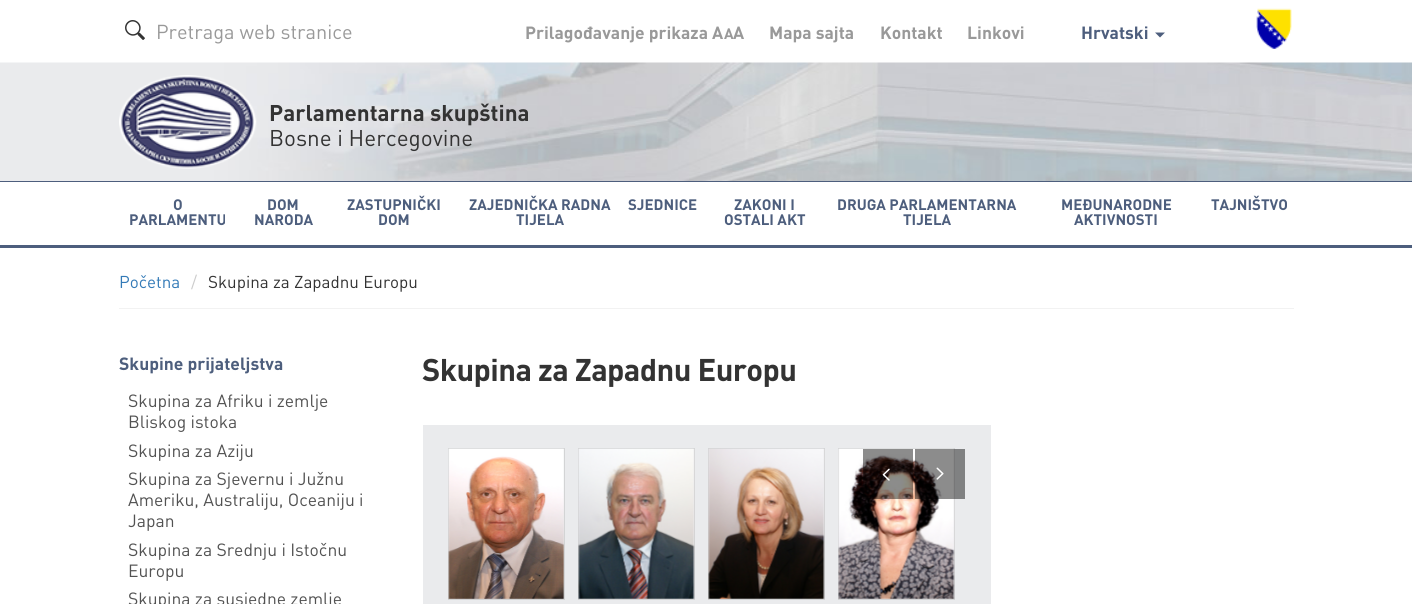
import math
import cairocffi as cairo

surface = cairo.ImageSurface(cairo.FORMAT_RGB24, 1412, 604)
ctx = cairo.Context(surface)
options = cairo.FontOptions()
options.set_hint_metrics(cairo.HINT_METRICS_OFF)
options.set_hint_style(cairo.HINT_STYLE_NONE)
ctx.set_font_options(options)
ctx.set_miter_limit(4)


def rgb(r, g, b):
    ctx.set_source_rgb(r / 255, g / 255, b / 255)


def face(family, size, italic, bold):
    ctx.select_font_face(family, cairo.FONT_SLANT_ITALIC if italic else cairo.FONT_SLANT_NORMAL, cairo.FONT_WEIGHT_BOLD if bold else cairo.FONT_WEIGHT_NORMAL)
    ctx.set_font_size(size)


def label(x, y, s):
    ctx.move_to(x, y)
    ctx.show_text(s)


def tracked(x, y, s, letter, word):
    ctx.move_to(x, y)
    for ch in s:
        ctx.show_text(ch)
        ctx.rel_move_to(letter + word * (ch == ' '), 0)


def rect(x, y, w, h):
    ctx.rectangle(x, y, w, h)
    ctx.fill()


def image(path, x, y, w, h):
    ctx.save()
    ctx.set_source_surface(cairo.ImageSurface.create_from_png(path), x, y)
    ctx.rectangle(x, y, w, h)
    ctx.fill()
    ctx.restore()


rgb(255, 255, 255)
ctx.paint()
image('image0.png', 125, 20, 20, 20)
face('DIN', 20, 0, 0)
rgb(153, 153, 153)
label(156, 39, 'Pretraga web stranice')
face('DIN', 17.5, 0, 1)
label(525, 39, 'Prilagođavanje prikaza A')
face('DIN', 15, 0, 1)
label(724, 39, 'A')
face('DIN', 17.5, 0, 1)
label(733, 39, 'A')
label(769, 39, 'Mapa sajta')
label(880, 39, 'Kontakt')
label(967, 39, 'Linkovi')
rgb(77, 94, 125)
label(1081, 39, 'Hrvatski')
ctx.new_path()
ctx.move_to(1155, 32.5)
ctx.line_to(1165, 32.5)
ctx.line_to(1160, 37.5)
ctx.close_path()
ctx.fill()
image('image1.png', 1256, 8, 36, 41)
image('image2.png', 0, 62, 1412, 119)
image('image3.png', 119, 75, 138, 94)
face('DIN', 22.5, 0, 1)
rgb(51, 51, 51)
label(269, 121, 'Parlamentarna skupština')
face('DIN', 22.5, 0, 0)
label(269, 146, 'Bosne i Hercegovine')
rgb(77, 94, 125)
rect(0, 181, 1412, 1)
rect(0, 245, 1412, 3)
face('DIN', 15, 0, 1)
label(173, 210, 'O')
label(129, 225, 'PARLAMENTU')
label(267, 210, 'DOM')
label(254, 225, 'NARODA')
label(347, 210, 'ZASTUPNIČKI')
label(378, 225, 'DOM')
label(469, 210, 'ZAJEDNIČKA RADNA')
label(516, 225, 'TIJELA')
label(628, 210, 'SJEDNICE')
label(734, 210, 'ZAKONI I')
label(724, 225, 'OSTALI AKT')
label(837, 210, 'DRUGA PARLAMENTARNA')
label(903, 225, 'TIJELA')
label(1061, 210, 'MEĐUNARODNE')
label(1074, 225, 'AKTIVNOSTI')
label(1211, 210, 'TAJNIŠTVO')
rgb(242, 242, 242)
rect(119, 308, 1175, 1)
face('DIN', 17, 0, 0)
rgb(51, 122, 183)
label(119, 288, 'Početna')
rgb(204, 204, 204)
label(191, 288, '/')
rgb(51, 51, 51)
label(208, 288, 'Skupina za Zapadnu Europu')
face('DIN', 17.5, 0, 1)
rgb(77, 94, 125)
label(119, 370, 'Skupine prijateljstva')
face('DIN', 17.5, 0, 0)
rgb(82, 82, 82)
label(128, 407, 'Skupina za Afriku i zemlje')
label(128, 428, 'Bliskog istoka')
label(128, 457, 'Skupina za Aziju')
label(128, 485, 'Skupina za Sjevernu i Južnu')
label(128, 506, 'Ameriku, Australiju, Oceaniju i')
label(128, 527, 'Japan')
label(128, 556, 'Skupina za Srednju i Istočnu')
label(128, 577, 'Europu')
label(128, 605, 'Skupina za susjedne zemlje')
face('DIN', 31, 0, 1)
rgb(51, 51, 51)
tracked(422, 381, 'Skupina za Zapadnu Europu', -0.6, 0)
rgb(234, 235, 237)
rect(423, 425, 568, 179)
ctx.rectangle(448.5, 448.5, 116, 151)
rgb(211, 212, 213)
ctx.set_line_width(1)
ctx.stroke()
image('image4.png', 448, 448, 116, 151)
ctx.rectangle(578.5, 448.5, 116, 151)
ctx.stroke()
image('image5.png', 578, 448, 117, 151)
ctx.rectangle(708.5, 448.5, 116, 151)
ctx.stroke()
image('image6.png', 708, 448, 117, 151)
ctx.rectangle(838.5, 448.5, 116, 151)
ctx.stroke()
image('image7.png', 838, 448, 117, 151)
ctx.set_source_rgba(0, 0, 0, 0.45)
rect(863, 449, 50, 50)
image('image8.png', 882, 468, 8, 13)
rect(915, 449, 50, 50)
image('image9.png', 936, 467, 8, 13)
surface.write_to_png('render.png')
